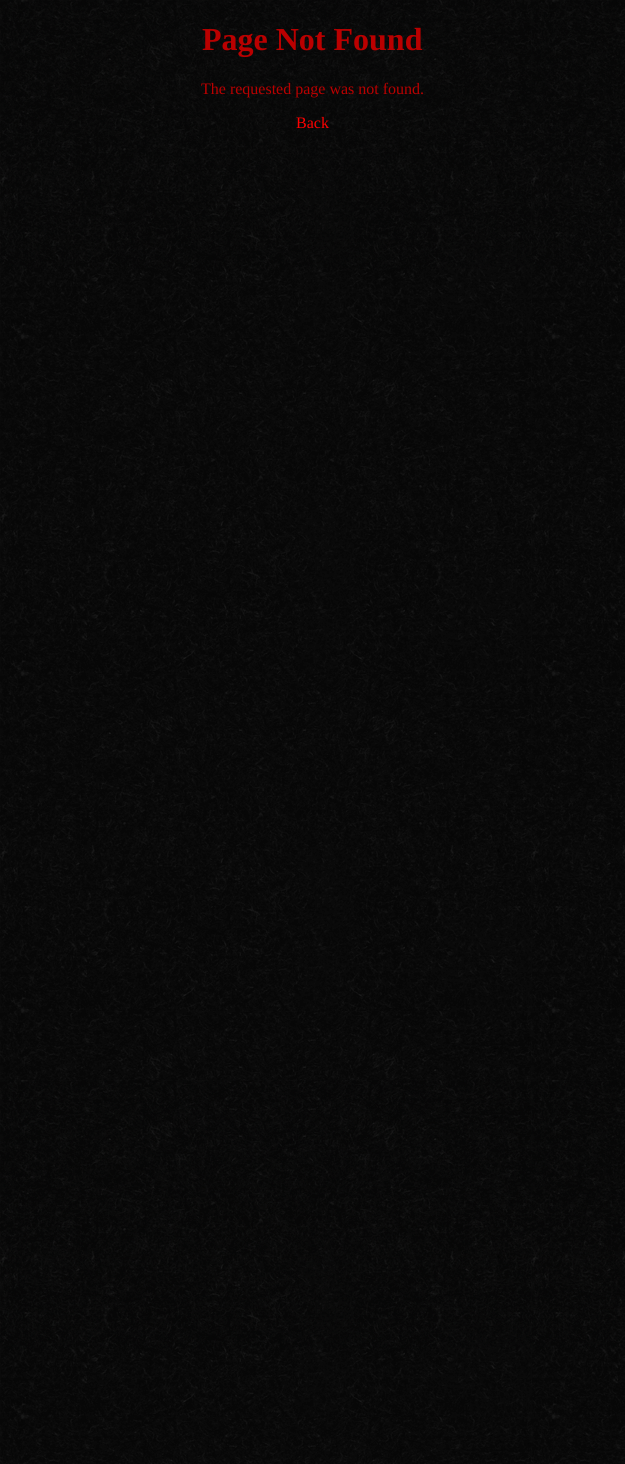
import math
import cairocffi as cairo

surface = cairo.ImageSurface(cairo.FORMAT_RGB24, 625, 1464)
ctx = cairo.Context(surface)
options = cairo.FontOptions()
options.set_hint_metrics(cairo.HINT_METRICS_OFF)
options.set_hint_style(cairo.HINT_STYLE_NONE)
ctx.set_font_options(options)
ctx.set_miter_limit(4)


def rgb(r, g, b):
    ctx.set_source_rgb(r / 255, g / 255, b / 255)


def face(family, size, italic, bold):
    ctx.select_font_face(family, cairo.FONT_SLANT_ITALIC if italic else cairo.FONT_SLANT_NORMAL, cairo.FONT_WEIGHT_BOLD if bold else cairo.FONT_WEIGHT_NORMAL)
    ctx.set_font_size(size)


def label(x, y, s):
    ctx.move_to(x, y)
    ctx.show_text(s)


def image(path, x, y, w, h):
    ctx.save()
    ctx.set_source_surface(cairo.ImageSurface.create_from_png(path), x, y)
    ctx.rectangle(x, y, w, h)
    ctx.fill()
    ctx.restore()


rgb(255, 255, 255)
ctx.paint()
image('image0.png', 0, 0, 625, 1464)
face('Liberation Serif', 32, 0, 1)
rgb(186, 0, 0)
label(202, 50, 'Page Not Found')
face('Liberation Serif', 16, 0, 0)
label(201, 94, 'The requested page was not found.')
rgb(255, 0, 0)
label(296, 128, 'Back')
surface.write_to_png('render.png')
